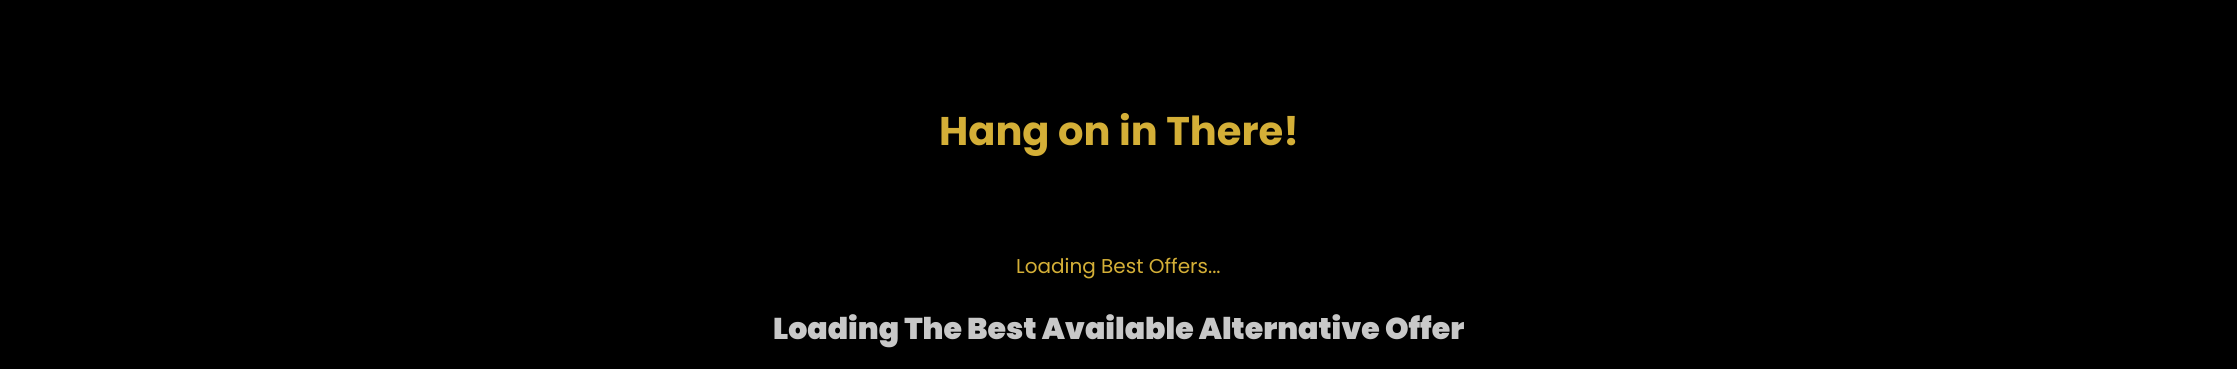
import math
import cairocffi as cairo

surface = cairo.ImageSurface(cairo.FORMAT_RGB24, 2237, 369)
ctx = cairo.Context(surface)
options = cairo.FontOptions()
options.set_hint_metrics(cairo.HINT_METRICS_OFF)
options.set_hint_style(cairo.HINT_STYLE_NONE)
ctx.set_font_options(options)
ctx.set_miter_limit(4)


def rgb(r, g, b):
    ctx.set_source_rgb(r / 255, g / 255, b / 255)


def face(family, size, italic, bold):
    ctx.select_font_face(family, cairo.FONT_SLANT_ITALIC if italic else cairo.FONT_SLANT_NORMAL, cairo.FONT_WEIGHT_BOLD if bold else cairo.FONT_WEIGHT_NORMAL)
    ctx.set_font_size(size)


def label(x, y, s):
    ctx.move_to(x, y)
    ctx.show_text(s)


rgb(0, 0, 0)
ctx.paint()
face('Poppins', 40, 0, 1)
rgb(212, 175, 55)
label(939, 145, 'Hang on in There!')
face('Poppins', 20, 0, 0)
label(1016, 273, 'Loading Best Offers...')
face('Poppins Black', 30, 0, 0)
rgb(200, 200, 200)
label(773, 339, 'Loading The Best Available Alternative Offer')
surface.write_to_png('render.png')
